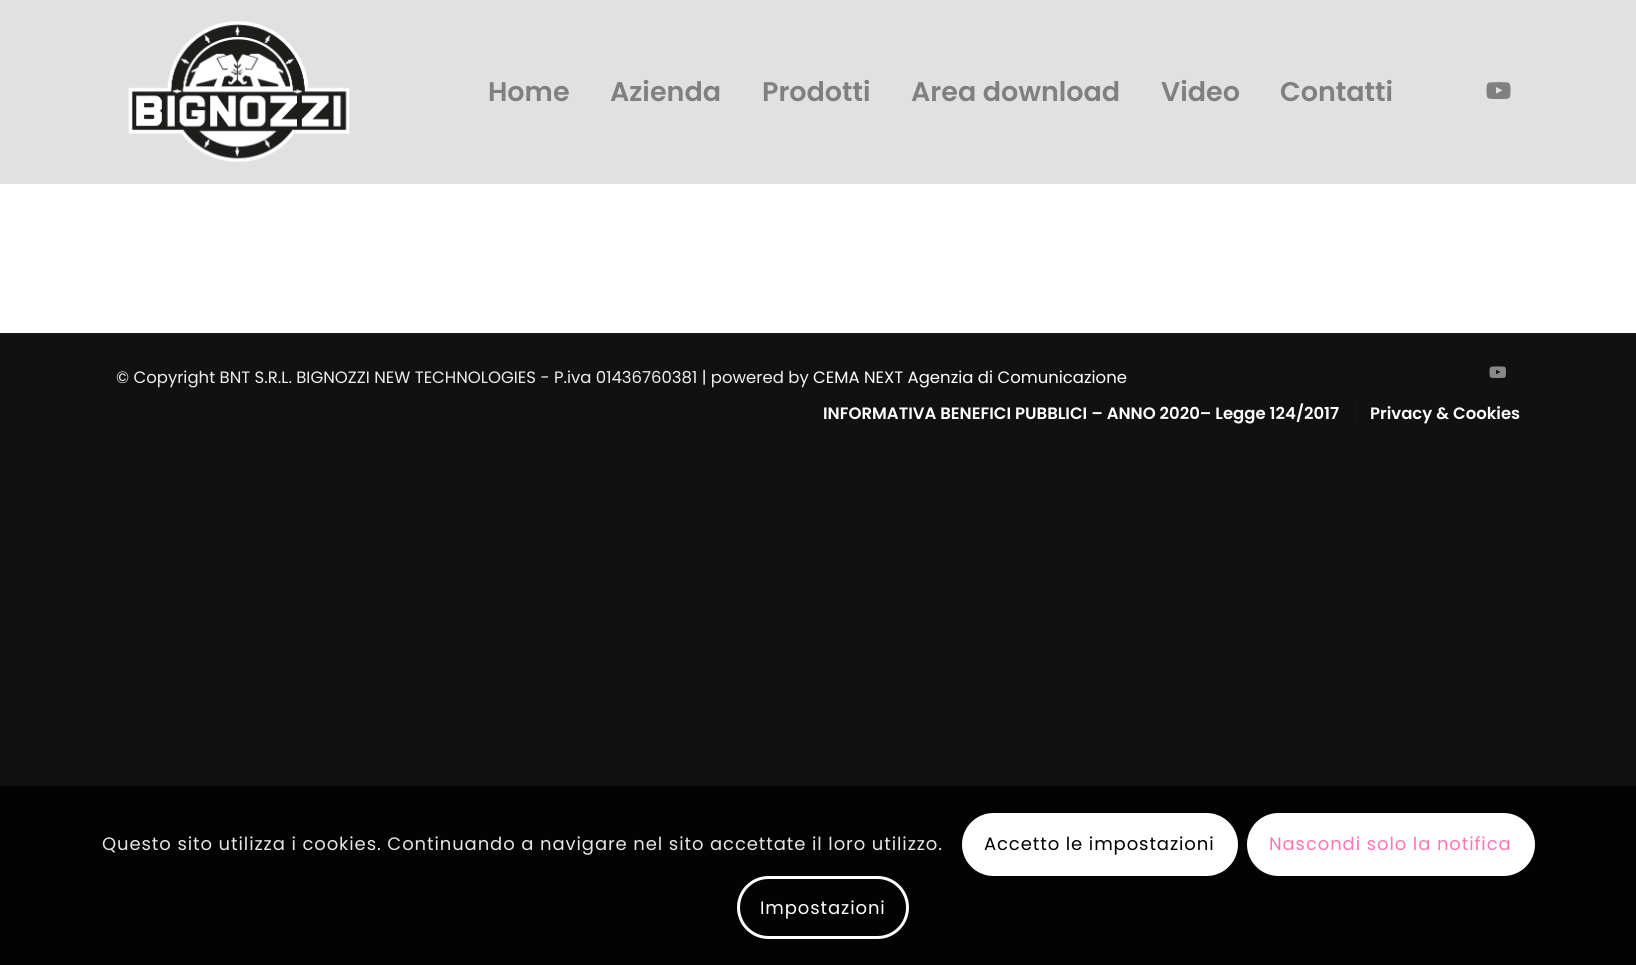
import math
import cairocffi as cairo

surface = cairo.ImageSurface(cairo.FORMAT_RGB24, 1636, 965)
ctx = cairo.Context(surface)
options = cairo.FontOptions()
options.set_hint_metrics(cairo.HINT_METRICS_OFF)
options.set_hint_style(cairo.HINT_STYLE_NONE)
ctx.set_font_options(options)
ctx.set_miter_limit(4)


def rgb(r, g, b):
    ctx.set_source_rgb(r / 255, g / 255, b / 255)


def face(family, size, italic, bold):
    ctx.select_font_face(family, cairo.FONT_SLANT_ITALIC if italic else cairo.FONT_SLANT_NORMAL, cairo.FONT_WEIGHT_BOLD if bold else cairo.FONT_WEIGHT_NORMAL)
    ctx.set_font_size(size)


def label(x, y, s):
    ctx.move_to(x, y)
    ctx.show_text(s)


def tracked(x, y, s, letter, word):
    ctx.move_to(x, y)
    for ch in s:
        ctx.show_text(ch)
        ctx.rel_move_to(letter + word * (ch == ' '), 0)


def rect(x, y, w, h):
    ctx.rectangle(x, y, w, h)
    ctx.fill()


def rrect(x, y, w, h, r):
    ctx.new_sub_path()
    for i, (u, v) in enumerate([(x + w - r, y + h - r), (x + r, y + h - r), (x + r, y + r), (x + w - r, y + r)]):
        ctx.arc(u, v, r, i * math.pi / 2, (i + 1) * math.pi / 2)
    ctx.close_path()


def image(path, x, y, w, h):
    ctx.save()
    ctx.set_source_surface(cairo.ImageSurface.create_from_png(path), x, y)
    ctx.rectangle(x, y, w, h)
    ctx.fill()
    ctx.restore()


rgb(17, 17, 17)
ctx.paint()
rgb(225, 225, 225)
rect(0, 0, 1636, 184)
image('image0.png', 128, 21, 222, 141)
face('Poppins SemiBold', 27, 0, 0)
rgb(128, 128, 128)
label(488, 101, 'Home')
label(610, 101, 'Azienda')
label(762, 101, 'Prodotti')
label(911, 101, 'Area download')
label(1161, 101, 'Video')
label(1280, 101, 'Contatti')
image('image1.png', 1486, 82, 25, 18)
rgb(255, 255, 255)
rect(0, 184, 1636, 149)
rgb(22, 22, 22)
rect(0, 333, 1636, 2)
face('Poppins', 16.5, 0, 0)
rgb(238, 238, 238)
label(116, 383, '© Copyright BNT S.R.L. BIGNOZZI NEW TECHNOLOGIES - P.iva 01436760381 | powered by')
rgb(255, 255, 255)
label(813, 383, 'CEMA NEXT Agenzia di Comunicazione')
image('image2.png', 1489, 366, 17, 12)
face('Poppins SemiBold', 16.5, 0, 0)
label(823, 419, 'INFORMATIVA BENEFICI PUBBLICI – ANNO 2020– Legge 124/2017')
rgb(22, 22, 22)
rect(1355, 405, 2, 15)
rgb(255, 255, 255)
label(1370, 419, 'Privacy & Cookies')
rgb(3, 3, 3)
rect(0, 786, 1636, 179)
face('Poppins', 18, 0, 0)
rgb(230, 230, 230)
tracked(102, 850, 'Questo sito utilizza i cookies. Continuando a navigare nel sito accettate il loro utilizzo.', 0.9, 0)
rgb(255, 255, 255)
rrect(962, 813, 276, 63, 31.5)
ctx.fill()
rgb(0, 0, 0)
tracked(984, 850, 'Accetto le impostazioni', 0.9, 0)
rgb(255, 255, 255)
rrect(1248.5, 814.5, 285, 60, 30)
ctx.fill_preserve()
ctx.set_line_width(3)
ctx.stroke()
rgb(255, 117, 181)
tracked(1269, 850, 'Nascondi solo la notifica', 0.9, 0)
rrect(738.5, 877.5, 169, 60, 30)
rgb(255, 255, 255)
ctx.stroke()
tracked(760, 914, 'Impostazioni', 0.9, 0)
surface.write_to_png('render.png')
